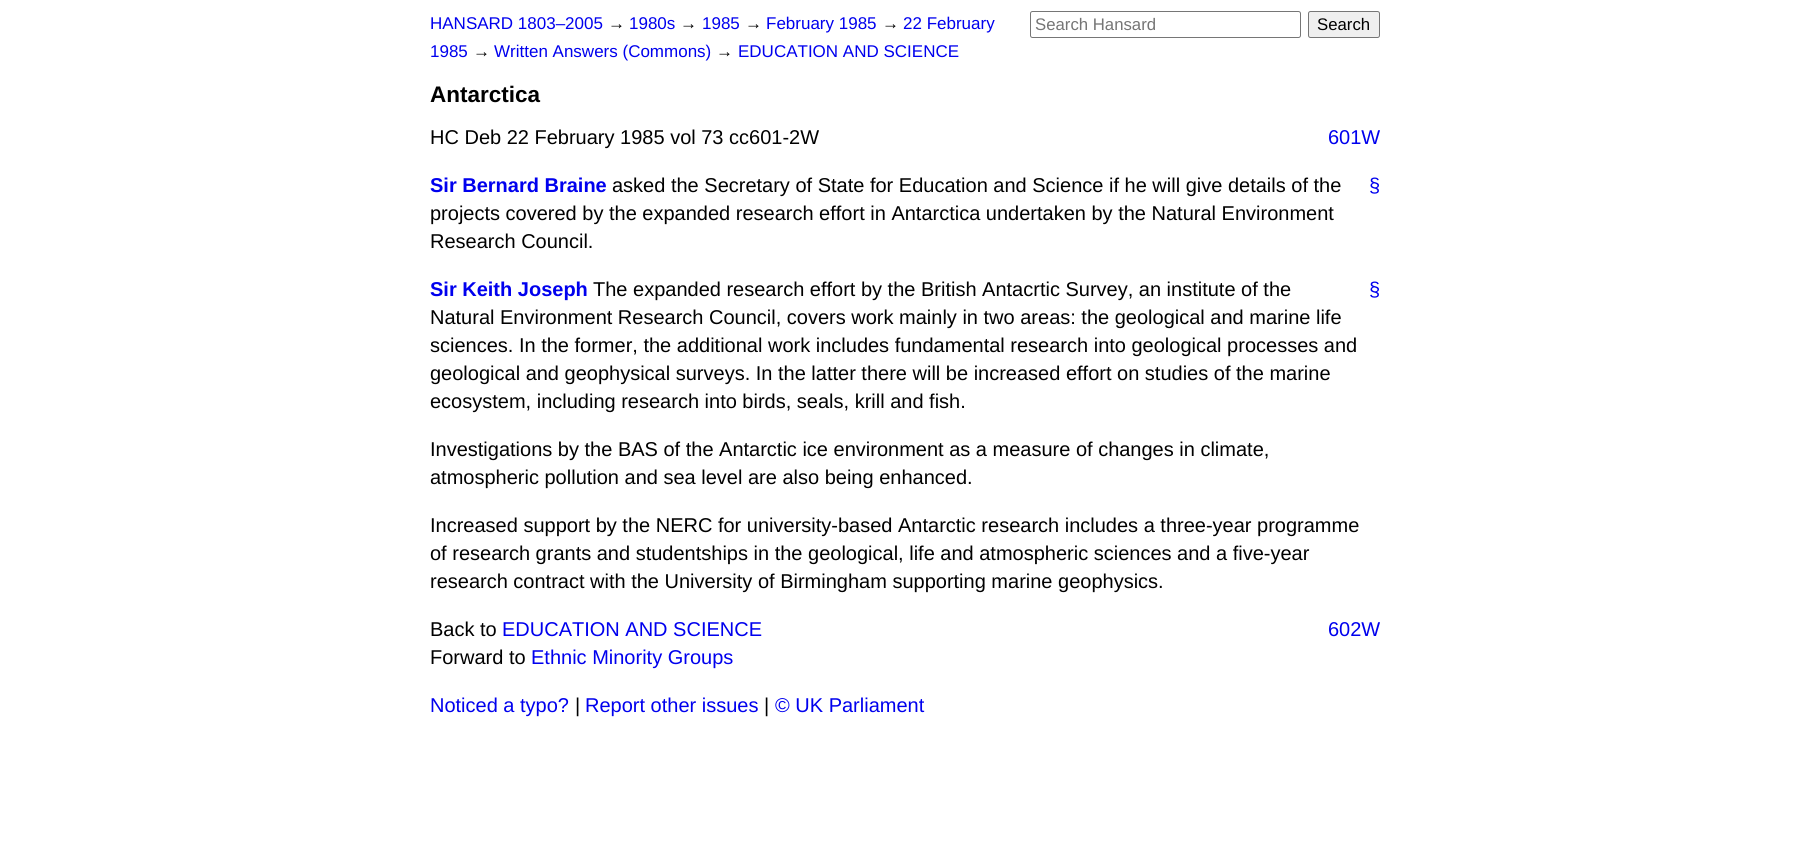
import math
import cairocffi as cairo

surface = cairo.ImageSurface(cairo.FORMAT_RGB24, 1809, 866)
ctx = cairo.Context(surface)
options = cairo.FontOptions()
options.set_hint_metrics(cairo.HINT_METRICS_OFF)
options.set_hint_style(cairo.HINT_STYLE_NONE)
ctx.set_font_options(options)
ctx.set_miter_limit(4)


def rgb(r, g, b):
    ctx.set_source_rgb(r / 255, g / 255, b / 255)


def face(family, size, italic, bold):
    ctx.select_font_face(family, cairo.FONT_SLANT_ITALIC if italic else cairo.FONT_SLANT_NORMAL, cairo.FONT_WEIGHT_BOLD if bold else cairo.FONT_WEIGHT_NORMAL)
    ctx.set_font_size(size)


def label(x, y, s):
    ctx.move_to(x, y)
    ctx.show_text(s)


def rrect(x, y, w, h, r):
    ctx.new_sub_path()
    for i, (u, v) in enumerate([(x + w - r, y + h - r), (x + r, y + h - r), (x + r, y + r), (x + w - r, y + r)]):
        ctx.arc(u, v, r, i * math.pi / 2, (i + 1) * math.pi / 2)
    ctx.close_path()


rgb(255, 255, 255)
ctx.paint()
face('Liberation Sans', 17, 0, 0)
rgb(0, 0, 238)
label(430, 29, 'HANSARD 1803–2005')
rgb(0, 0, 0)
label(608, 29, '→')
rgb(0, 0, 238)
label(629, 29, '1980s')
rgb(0, 0, 0)
label(680, 29, '→')
rgb(0, 0, 238)
label(702, 29, '1985')
rgb(0, 0, 0)
label(745, 29, '→')
rgb(0, 0, 238)
label(766, 29, 'February 1985')
rgb(0, 0, 0)
label(882, 29, '→')
rgb(0, 0, 238)
label(903, 29, '22 February')
label(430, 57, '1985')
rgb(0, 0, 0)
label(473, 57, '→')
rgb(0, 0, 238)
label(494, 57, 'Written Answers (Commons)')
rgb(0, 0, 0)
label(716, 57, '→')
rgb(0, 0, 238)
label(738, 57, 'EDUCATION AND SCIENCE')
rrect(1030.5, 11.5, 270, 26, 2)
rgb(118, 118, 118)
ctx.set_line_width(1)
ctx.stroke()
face('Liberation Sans', 16.75, 0, 0)
rgb(117, 117, 117)
label(1035, 30, 'Search Hansard')
rgb(239, 239, 239)
rrect(1308.5, 11.5, 71, 26, 2)
ctx.fill_preserve()
rgb(118, 118, 118)
ctx.stroke()
rgb(0, 0, 0)
label(1317, 30, 'Search')
face('Liberation Sans', 22.5, 0, 1)
label(430, 102, 'Antarctica')
face('Liberation Sans', 20, 0, 0)
label(430, 144, 'HC Deb 22 February 1985 vol 73 cc601-2W')
rgb(0, 0, 238)
label(1328, 144, '601W')
face('Liberation Sans', 20, 0, 1)
label(430, 192, 'Sir Bernard Braine')
face('Liberation Sans', 20, 0, 0)
rgb(0, 0, 0)
label(612, 192, 'asked the Secretary of State for Education and Science if he will give details of the')
rgb(0, 0, 238)
label(1369, 192, '§')
rgb(0, 0, 0)
label(430, 220, 'projects covered by the expanded research effort in Antarctica undertaken by the Natural Environment')
label(430, 248, 'Research Council.')
face('Liberation Sans', 20, 0, 1)
rgb(0, 0, 238)
label(430, 296, 'Sir Keith Joseph')
face('Liberation Sans', 20, 0, 0)
rgb(0, 0, 0)
label(593, 296, 'The expanded research effort by the British Antacrtic Survey, an institute of the')
rgb(0, 0, 238)
label(1369, 296, '§')
rgb(0, 0, 0)
label(430, 324, 'Natural Environment Research Council, covers work mainly in two areas: the geological and marine life')
label(430, 352, 'sciences. In the former, the additional work includes fundamental research into geological processes and')
label(430, 380, 'geological and geophysical surveys. In the latter there will be increased effort on studies of the marine')
label(430, 408, 'ecosystem, including research into birds, seals, krill and fish.')
label(430, 456, 'Investigations by the BAS of the Antarctic ice environment as a measure of changes in climate,')
label(430, 484, 'atmospheric pollution and sea level are also being enhanced.')
label(430, 532, 'Increased support by the NERC for university-based Antarctic research includes a three-year programme')
label(430, 560, 'of research grants and studentships in the geological, life and atmospheric sciences and a five-year')
label(430, 588, 'research contract with the University of Birmingham supporting marine geophysics.')
rgb(0, 0, 238)
label(1328, 636, '602W')
rgb(0, 0, 0)
label(430, 636, 'Back to')
rgb(0, 0, 238)
label(502, 636, 'EDUCATION AND SCIENCE')
rgb(0, 0, 0)
label(430, 664, 'Forward to')
rgb(0, 0, 238)
label(531, 664, 'Ethnic Minority Groups')
label(430, 712, 'Noticed a typo?')
rgb(0, 0, 0)
label(575, 712, '|')
rgb(0, 0, 238)
label(585, 712, 'Report other issues')
rgb(0, 0, 0)
label(764, 712, '|')
rgb(0, 0, 238)
label(775, 712, '© UK Parliament')
surface.write_to_png('render.png')
